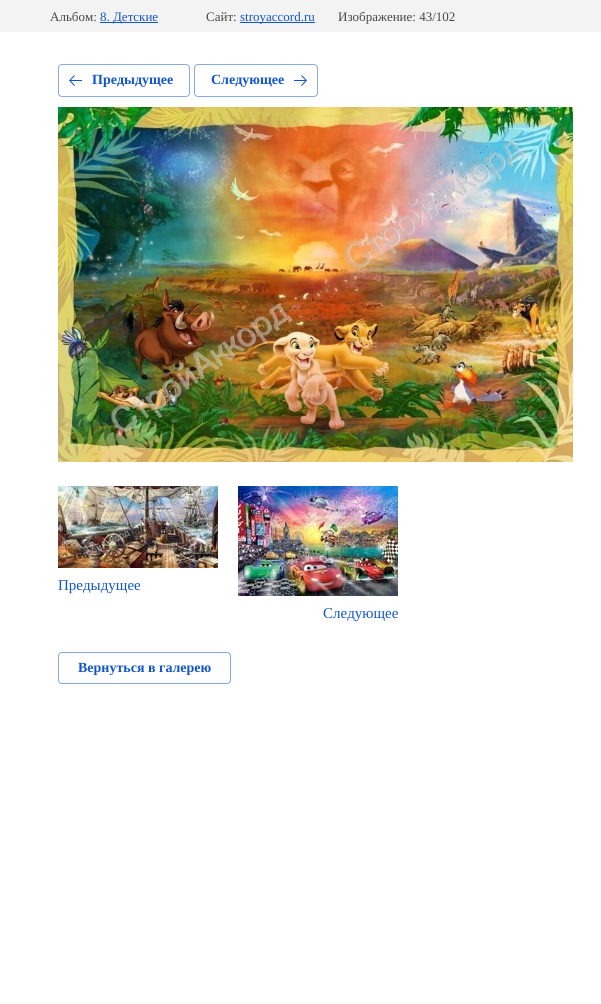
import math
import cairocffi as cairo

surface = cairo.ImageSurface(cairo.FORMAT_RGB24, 601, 1004)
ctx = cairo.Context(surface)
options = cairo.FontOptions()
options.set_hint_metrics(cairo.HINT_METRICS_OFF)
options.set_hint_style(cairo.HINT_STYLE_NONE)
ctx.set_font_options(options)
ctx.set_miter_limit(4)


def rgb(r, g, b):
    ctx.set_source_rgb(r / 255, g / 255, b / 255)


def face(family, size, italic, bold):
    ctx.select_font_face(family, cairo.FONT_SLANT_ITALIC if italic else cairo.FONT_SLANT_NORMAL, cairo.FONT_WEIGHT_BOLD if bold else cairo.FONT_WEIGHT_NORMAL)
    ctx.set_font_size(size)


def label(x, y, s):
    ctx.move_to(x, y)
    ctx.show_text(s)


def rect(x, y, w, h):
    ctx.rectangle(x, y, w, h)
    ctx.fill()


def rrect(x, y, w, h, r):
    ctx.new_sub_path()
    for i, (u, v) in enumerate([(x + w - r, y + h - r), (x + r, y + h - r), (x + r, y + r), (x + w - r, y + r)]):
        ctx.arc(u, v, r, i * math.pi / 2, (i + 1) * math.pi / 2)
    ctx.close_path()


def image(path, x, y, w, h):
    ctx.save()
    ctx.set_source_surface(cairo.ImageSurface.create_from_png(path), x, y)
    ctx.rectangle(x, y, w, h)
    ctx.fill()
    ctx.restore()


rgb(255, 255, 255)
ctx.paint()
rgb(243, 243, 243)
rect(0, 0, 601, 32)
face('Liberation Serif', 13, 0, 0)
rgb(72, 72, 72)
label(50, 21, 'Альбом:')
rgb(17, 85, 204)
rect(100, 22, 58, 1)
label(100, 21, '8. Детские')
rgb(72, 72, 72)
label(206, 21, 'Сайт:')
rgb(17, 85, 204)
rect(240, 22, 75, 1)
label(240, 21, 'stroyaccord.ru')
rgb(72, 72, 72)
label(338, 21, 'Изображение: 43/102')
rrect(58.5, 64.5, 131, 32, 3.5)
rgb(136, 170, 230)
ctx.set_line_width(1)
ctx.stroke()
image('image0.png', 69, 75, 13, 11)
face('Liberation Serif', 14, 0, 1)
rgb(17, 85, 204)
label(92, 84, 'Предыдущее')
rrect(194.5, 64.5, 123, 32, 3.5)
rgb(136, 170, 230)
ctx.stroke()
rgb(17, 85, 204)
label(211, 84, 'Следующее')
image('image1.png', 294, 75, 13, 11)
image('image2.png', 58, 107, 515, 355)
image('image3.png', 58, 486, 160, 82)
face('Liberation Serif', 15, 0, 0)
label(58, 590, 'Предыдущее')
image('image4.png', 238, 486, 160, 110)
label(323, 618, 'Следующее')
rrect(58.5, 652.5, 172, 31, 3.5)
rgb(136, 170, 230)
ctx.stroke()
face('Liberation Serif', 14, 0, 1)
rgb(17, 85, 204)
label(78, 672, 'Вернуться в галерею')
surface.write_to_png('render.png')
